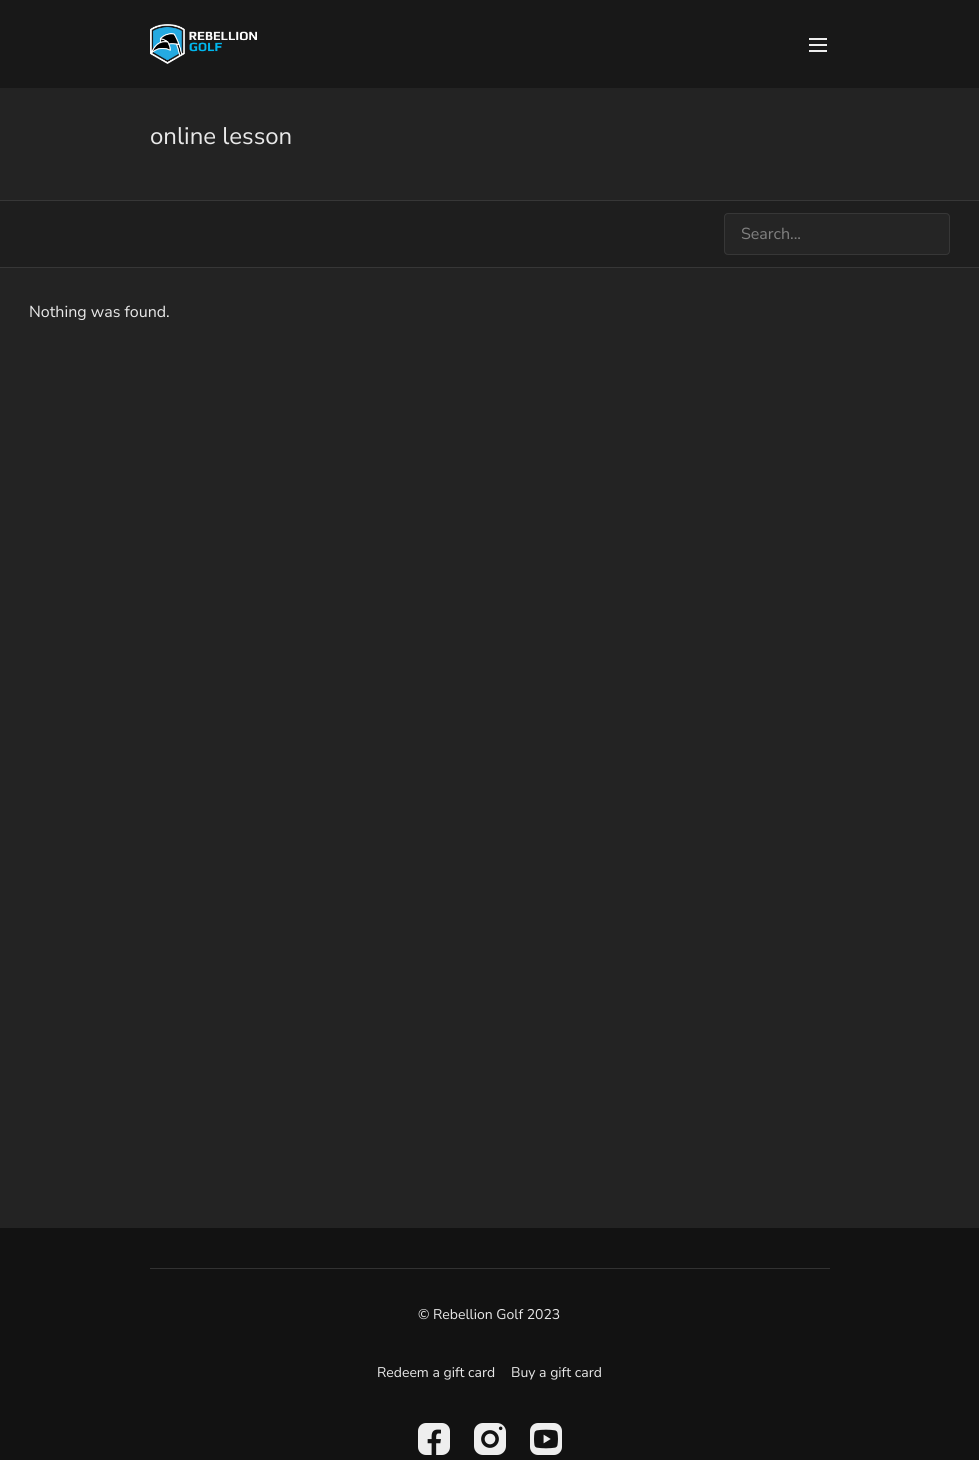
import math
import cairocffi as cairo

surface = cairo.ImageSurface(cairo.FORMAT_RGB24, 979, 1460)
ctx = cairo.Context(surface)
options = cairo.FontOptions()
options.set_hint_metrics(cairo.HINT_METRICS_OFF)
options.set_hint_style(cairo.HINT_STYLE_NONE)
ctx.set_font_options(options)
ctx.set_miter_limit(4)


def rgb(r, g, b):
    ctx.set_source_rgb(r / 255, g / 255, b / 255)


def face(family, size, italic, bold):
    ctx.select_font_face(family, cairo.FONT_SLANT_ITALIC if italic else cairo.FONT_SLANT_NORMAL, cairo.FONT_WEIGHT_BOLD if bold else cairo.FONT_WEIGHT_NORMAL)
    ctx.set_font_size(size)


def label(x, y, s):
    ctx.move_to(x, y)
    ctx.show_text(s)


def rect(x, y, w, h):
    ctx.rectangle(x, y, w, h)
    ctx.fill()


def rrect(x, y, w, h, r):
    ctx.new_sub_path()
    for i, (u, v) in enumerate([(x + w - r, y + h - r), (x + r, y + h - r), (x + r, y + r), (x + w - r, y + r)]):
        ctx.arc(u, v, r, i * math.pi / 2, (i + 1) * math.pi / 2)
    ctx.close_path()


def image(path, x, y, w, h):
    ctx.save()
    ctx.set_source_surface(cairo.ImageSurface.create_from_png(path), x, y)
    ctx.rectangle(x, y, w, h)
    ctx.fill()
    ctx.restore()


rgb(35, 35, 35)
ctx.paint()
rgb(24, 24, 24)
rect(0, 0, 979, 88)
image('image0.png', 150, 24, 107, 40)
image('image1.png', 809, 38, 18, 14)
rgb(55, 55, 55)
rect(0, 200, 979, 1)
face('Nunito Sans', 24, 0, 0)
rgb(233, 233, 233)
label(150, 144, 'online lesson')
rgb(30, 30, 30)
rect(0, 201, 979, 66)
rgb(55, 55, 55)
rect(0, 267, 979, 1)
rgb(37, 37, 37)
rrect(724.5, 213.5, 225, 41, 3.5)
ctx.fill_preserve()
rgb(55, 55, 55)
ctx.set_line_width(1)
ctx.stroke()
face('Nunito Sans', 16, 0, 0)
rgb(129, 129, 129)
label(741, 239, 'Search...')
rgb(233, 233, 233)
label(29, 317, 'Nothing was found.')
rgb(18, 18, 18)
rect(0, 1228, 979, 232)
rgb(50, 50, 50)
rect(150, 1268, 680, 1)
face('Nunito Sans', 14, 0, 0)
rgb(233, 233, 233)
label(418, 1319, '© Rebellion Golf 2023')
label(377, 1377, 'Redeem a gift card')
label(511, 1377, 'Buy a gift card')
image('image2.png', 418, 1423, 32, 32)
image('image3.png', 474, 1423, 32, 32)
image('image4.png', 530, 1423, 32, 32)
surface.write_to_png('render.png')
